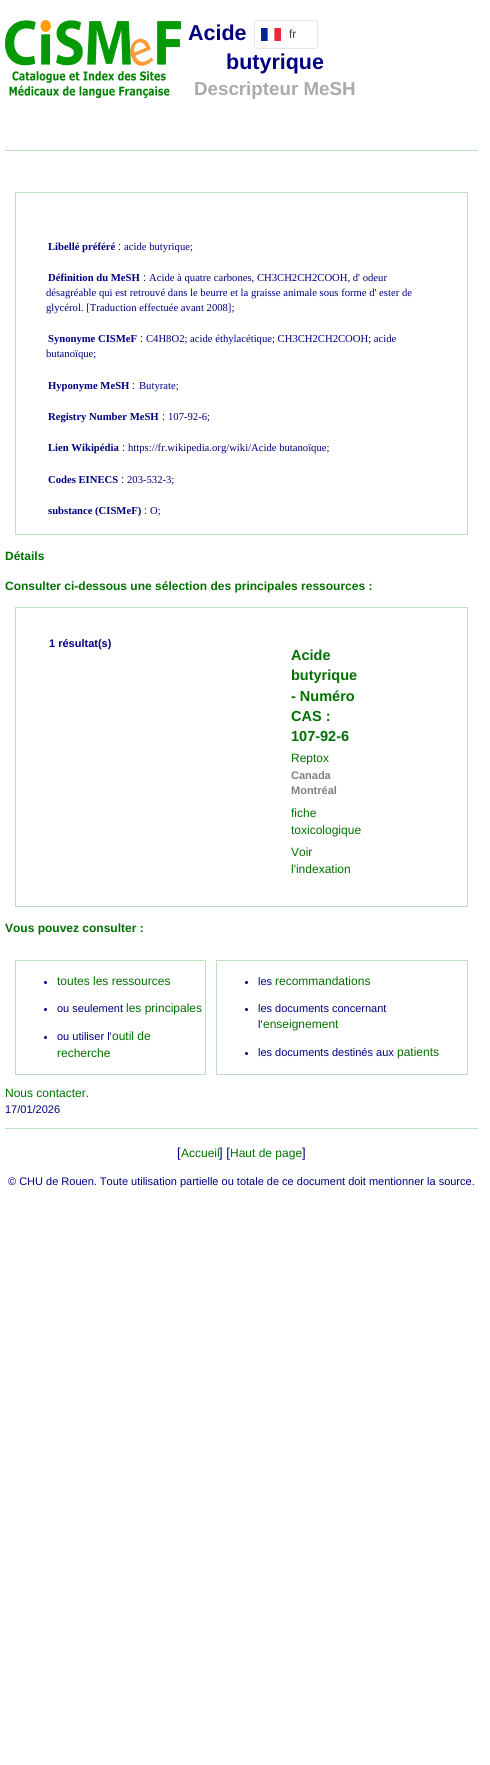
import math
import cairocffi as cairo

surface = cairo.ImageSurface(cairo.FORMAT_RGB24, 490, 1765)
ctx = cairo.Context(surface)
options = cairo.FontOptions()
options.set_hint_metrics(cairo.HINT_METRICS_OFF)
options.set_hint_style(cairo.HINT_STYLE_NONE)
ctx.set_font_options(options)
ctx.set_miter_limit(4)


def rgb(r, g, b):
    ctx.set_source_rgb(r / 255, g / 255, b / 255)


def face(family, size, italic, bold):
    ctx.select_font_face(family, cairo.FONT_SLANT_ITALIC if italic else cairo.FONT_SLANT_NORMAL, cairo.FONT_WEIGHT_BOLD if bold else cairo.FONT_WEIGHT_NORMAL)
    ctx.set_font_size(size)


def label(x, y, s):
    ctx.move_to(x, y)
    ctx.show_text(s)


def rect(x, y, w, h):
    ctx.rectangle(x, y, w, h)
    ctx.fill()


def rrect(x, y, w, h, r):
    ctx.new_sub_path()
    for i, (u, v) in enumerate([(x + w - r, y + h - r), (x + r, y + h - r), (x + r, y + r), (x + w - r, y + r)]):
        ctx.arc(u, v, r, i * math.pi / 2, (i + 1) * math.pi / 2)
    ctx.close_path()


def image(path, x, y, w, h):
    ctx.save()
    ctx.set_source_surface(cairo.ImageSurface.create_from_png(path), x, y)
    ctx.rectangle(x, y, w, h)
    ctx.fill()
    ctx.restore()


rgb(255, 255, 255)
ctx.paint()
rgb(192, 224, 192)
rect(5, 150, 473, 1)
image('image0.png', 5, 20, 176, 78)
face('Liberation Sans', 21.5, 0, 1)
rgb(0, 0, 128)
label(188, 40, 'Acide')
label(226, 69, 'butyrique')
image('image1.png', 261, 28, 20, 13)
rrect(254.5, 20.5, 63, 28, 2.5)
rgb(229, 229, 229)
ctx.set_line_width(1)
ctx.stroke()
face('Liberation Sans', 12, 0, 0)
rgb(68, 68, 68)
label(289, 38, 'fr')
face('Liberation Sans', 18.75, 0, 1)
rgb(170, 170, 170)
label(194, 95, 'Descripteur MeSH')
ctx.rectangle(15.5, 192.5, 452, 342)
rgb(192, 224, 192)
ctx.stroke()
face('Liberation Serif', 10.65, 0, 1)
rgb(0, 0, 128)
label(48, 250, 'Libellé préféré')
face('Liberation Sans', 11, 0, 0)
label(118, 250, ':')
face('Liberation Serif', 10.65, 0, 0)
label(124, 250, 'acide butyrique;')
face('Liberation Serif', 10.65, 0, 1)
label(48, 281, 'Définition du MeSH')
face('Liberation Sans', 11, 0, 0)
label(143, 281, ':')
face('Liberation Serif', 10.65, 0, 0)
label(149, 281, 'Acide à quatre carbones, CH3CH2CH2COOH, d\' odeur')
label(46, 296, 'désagréable qui est retrouvé dans le beurre et la graisse animale sous forme d\' ester de')
label(46, 311, 'glycérol. [Traduction effectuée avant 2008];')
face('Liberation Serif', 10.65, 0, 1)
label(48, 342, 'Synonyme CISMeF')
face('Liberation Sans', 11, 0, 0)
label(140, 342, ':')
face('Liberation Serif', 10.65, 0, 0)
label(146, 342, 'C4H8O2; acide éthylacétique; CH3CH2CH2COOH; acide')
label(46, 357, 'butanoïque;')
face('Liberation Serif', 10.65, 0, 1)
label(48, 389, 'Hyponyme MeSH')
face('Liberation Sans', 11, 0, 0)
label(132, 389, ':')
face('Liberation Serif', 10.65, 0, 0)
label(139, 389, 'Butyrate;')
face('Liberation Serif', 10.65, 0, 1)
label(48, 420, 'Registry Number MeSH')
face('Liberation Sans', 11, 0, 0)
label(162, 420, ':')
face('Liberation Serif', 10.65, 0, 0)
label(168, 420, '107-92-6;')
face('Liberation Serif', 10.65, 0, 1)
label(48, 451, 'Lien Wikipédia')
face('Liberation Sans', 11, 0, 0)
label(122, 451, ':')
face('Liberation Serif', 10.65, 0, 0)
label(128, 451, 'https://fr.wikipedia.org/wiki/Acide butanoïque;')
face('Liberation Serif', 10.65, 0, 1)
label(48, 483, 'Codes EINECS')
face('Liberation Sans', 11, 0, 0)
label(121, 483, ':')
face('Liberation Serif', 10.65, 0, 0)
label(127, 483, '203-532-3;')
face('Liberation Serif', 10.65, 0, 1)
label(48, 514, 'substance (CISMeF)')
face('Liberation Sans', 11, 0, 0)
label(144, 514, ':')
face('Liberation Serif', 10.65, 0, 0)
label(150, 514, 'O;')
face('Liberation Sans', 12, 0, 1)
rgb(0, 112, 0)
label(5, 560, 'Détails')
label(5, 590, 'Consulter ci-dessous une sélection des principales ressources :')
ctx.rectangle(15.5, 607.5, 452, 299)
rgb(192, 224, 192)
ctx.stroke()
face('Liberation Sans', 11, 0, 1)
rgb(0, 0, 128)
label(49, 647, '1 résultat(s)')
face('Liberation Sans', 14.5, 0, 1)
rgb(0, 112, 0)
label(291, 660, 'Acide')
label(291, 680, 'butyrique')
label(291, 701, '- Numéro')
label(291, 721, 'CAS :')
label(291, 741, '107-92-6')
face('Liberation Sans', 12, 0, 0)
label(291, 762, 'Reptox')
face('Liberation Sans', 11, 0, 1)
rgb(128, 128, 128)
label(291, 779, 'Canada')
label(291, 794, 'Montréal')
face('Liberation Sans', 12, 0, 0)
rgb(0, 112, 0)
label(291, 817, 'fiche')
label(291, 834, 'toxicologique')
label(291, 856, 'Voir')
label(291, 873, 'l\'indexation')
face('Liberation Sans', 12, 0, 1)
label(5, 932, 'Vous pouvez consulter :')
ctx.rectangle(15.5, 960.5, 190, 114)
rgb(192, 224, 192)
ctx.stroke()
rgb(0, 0, 128)
ctx.arc(45.5, 982.5, 1.5, 0, 2 * math.pi)
ctx.fill()
face('Liberation Sans', 12, 0, 0)
rgb(0, 112, 0)
label(57, 985, 'toutes les ressources')
rgb(0, 0, 128)
ctx.new_path()
ctx.arc(45.5, 1009.5, 1.5, 0, 2 * math.pi)
ctx.fill()
face('Liberation Sans', 11, 0, 0)
label(57, 1012, 'ou seulement')
face('Liberation Sans', 12, 0, 0)
rgb(0, 112, 0)
label(126, 1012, 'les principales')
rgb(0, 0, 128)
ctx.new_path()
ctx.arc(45.5, 1037.5, 1.5, 0, 2 * math.pi)
ctx.fill()
face('Liberation Sans', 11, 0, 0)
label(57, 1040, 'ou utiliser l\'')
face('Liberation Sans', 12, 0, 0)
rgb(0, 112, 0)
label(112, 1040, 'outil de')
label(57, 1057, 'recherche')
ctx.rectangle(216.5, 960.5, 251, 114)
rgb(192, 224, 192)
ctx.stroke()
rgb(0, 0, 128)
ctx.arc(246.5, 982.5, 1.5, 0, 2 * math.pi)
ctx.fill()
face('Liberation Sans', 11, 0, 0)
label(258, 985, 'les')
face('Liberation Sans', 12, 0, 0)
rgb(0, 112, 0)
label(275, 985, 'recommandations')
rgb(0, 0, 128)
ctx.new_path()
ctx.arc(246.5, 1009.5, 1.5, 0, 2 * math.pi)
ctx.fill()
face('Liberation Sans', 11, 0, 0)
label(258, 1012, 'les documents concernant')
label(258, 1028, 'l\'')
face('Liberation Sans', 12, 0, 0)
rgb(0, 112, 0)
label(263, 1028, 'enseignement')
rgb(0, 0, 128)
ctx.new_path()
ctx.arc(246.5, 1053.5, 1.5, 0, 2 * math.pi)
ctx.fill()
face('Liberation Sans', 11, 0, 0)
label(258, 1056, 'les documents destinés aux')
face('Liberation Sans', 12, 0, 0)
rgb(0, 112, 0)
label(397, 1056, 'patients')
label(5, 1097, 'Nous contacter.')
face('Liberation Sans', 11, 0, 0)
rgb(0, 0, 128)
label(5, 1113, '17/01/2026')
rgb(192, 224, 192)
rect(5, 1128, 473, 1)
face('Liberation Sans', 13, 0, 0)
rgb(0, 0, 128)
label(177, 1157, '[')
face('Liberation Sans', 12, 0, 0)
rgb(0, 112, 0)
label(181, 1157, 'Accueil')
face('Liberation Sans', 13, 0, 0)
rgb(0, 0, 128)
label(219, 1157, '] [')
face('Liberation Sans', 12, 0, 0)
rgb(0, 112, 0)
label(230, 1157, 'Haut de page')
face('Liberation Sans', 13, 0, 0)
rgb(0, 0, 128)
label(302, 1157, ']')
face('Liberation Sans', 11, 0, 0)
label(8, 1185, '© CHU de Rouen. Toute utilisation partielle ou totale de ce document doit mentionner la source.')
surface.write_to_png('render.png')
